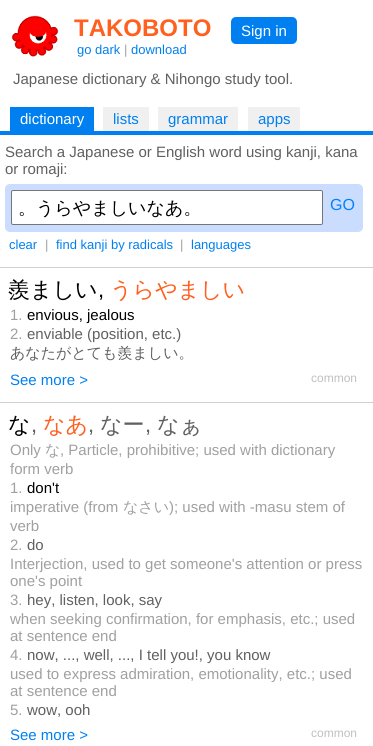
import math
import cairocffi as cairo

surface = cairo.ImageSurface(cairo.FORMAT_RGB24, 373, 746)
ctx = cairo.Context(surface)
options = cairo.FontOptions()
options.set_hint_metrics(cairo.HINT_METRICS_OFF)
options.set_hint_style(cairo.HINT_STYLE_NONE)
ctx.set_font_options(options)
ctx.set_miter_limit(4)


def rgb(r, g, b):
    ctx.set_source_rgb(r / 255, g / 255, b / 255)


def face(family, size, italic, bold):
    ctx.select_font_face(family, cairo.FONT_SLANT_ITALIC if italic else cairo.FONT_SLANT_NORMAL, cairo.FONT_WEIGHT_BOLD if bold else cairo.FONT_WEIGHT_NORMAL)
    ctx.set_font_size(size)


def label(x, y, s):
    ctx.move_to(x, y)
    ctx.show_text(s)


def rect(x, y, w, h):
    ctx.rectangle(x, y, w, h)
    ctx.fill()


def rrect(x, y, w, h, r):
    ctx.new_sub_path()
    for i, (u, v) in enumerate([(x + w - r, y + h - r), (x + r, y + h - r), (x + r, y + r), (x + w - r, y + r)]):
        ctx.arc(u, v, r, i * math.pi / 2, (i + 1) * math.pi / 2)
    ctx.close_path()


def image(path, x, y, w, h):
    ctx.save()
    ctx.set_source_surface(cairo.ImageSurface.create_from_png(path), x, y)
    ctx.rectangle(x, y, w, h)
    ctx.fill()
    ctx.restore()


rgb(255, 255, 255)
ctx.paint()
rgb(0, 128, 240)
rect(0, 131, 373, 4)
image('image0.png', 11, 15, 48, 42)
face('Liberation Sans', 24, 0, 1)
rgb(255, 96, 32)
label(74, 36, 'TAKOBOTO')
face('Liberation Sans', 13, 0, 0)
rgb(0, 128, 240)
label(77, 54, 'go dark')
rgb(160, 160, 160)
label(124, 54, '|')
rgb(0, 128, 240)
label(131, 54, 'download')
rrect(231, 17, 66, 27, 5)
ctx.fill()
face('Liberation Sans', 15, 0, 0)
rgb(255, 255, 255)
label(241, 36, 'Sign in')
rgb(96, 96, 96)
label(13, 84, 'Japanese dictionary & Nihongo study tool.')
rgb(0, 128, 240)
rect(10, 107, 84, 24)
rgb(255, 255, 255)
label(20, 124, 'dictionary')
rgb(240, 240, 240)
rect(103, 107, 46, 24)
rgb(0, 128, 240)
label(113, 124, 'lists')
rgb(240, 240, 240)
rect(158, 107, 80, 24)
rgb(0, 128, 240)
label(168, 124, 'grammar')
rgb(240, 240, 240)
rect(248, 107, 52, 24)
rgb(0, 128, 240)
label(258, 124, 'apps')
rgb(96, 96, 96)
label(5, 157, 'Search a Japanese or English word using kanji, kana')
label(5, 174, 'or romaji:')
rgb(202, 221, 255)
rrect(5, 184, 358, 48, 5)
ctx.fill()
rgb(255, 255, 255)
rrect(11.5, 190.5, 311, 34, 1.5)
ctx.fill_preserve()
rgb(118, 118, 118)
ctx.set_line_width(1)
ctx.stroke()
face('WenQuanYi Zen Hei Medium', 18, 0, 0)
rgb(0, 0, 0)
label(18, 214, '。うらやましいなあ。')
face('Liberation Sans', 16, 0, 0)
rgb(0, 128, 255)
label(330, 210, 'GO')
face('Liberation Sans', 13, 0, 0)
rgb(0, 128, 240)
label(9, 249, 'clear')
rgb(160, 160, 160)
label(45, 249, '|')
rgb(0, 128, 240)
label(56, 249, 'find kanji by radicals')
rgb(160, 160, 160)
label(180, 249, '|')
rgb(0, 128, 240)
label(191, 249, 'languages')
rgb(208, 208, 208)
rect(0, 267, 373, 1)
face('WenQuanYi Zen Hei Medium', 22, 0, 0)
rgb(0, 0, 0)
label(8, 297, '羨ましい')
face('Liberation Sans', 22, 0, 0)
label(98, 297, ',')
face('WenQuanYi Zen Hei Medium', 22, 0, 0)
rgb(255, 96, 32)
label(110, 297, 'うらやましい')
face('Liberation Sans', 15, 0, 0)
rgb(160, 160, 160)
label(10, 320, '1.')
rgb(0, 0, 0)
label(27, 320, 'envious, jealous')
rgb(160, 160, 160)
label(10, 339, '2.')
rgb(96, 96, 96)
label(27, 339, 'enviable (position, etc.)')
face('WenQuanYi Zen Hei Medium', 15, 0, 0)
label(10, 358, 'あなたがとても羨ましい。')
face('Liberation Sans', 15, 0, 0)
rgb(0, 128, 240)
label(10, 385, 'See more >')
face('Liberation Sans', 12, 0, 0)
rgb(192, 192, 192)
label(311, 382, 'common')
rgb(208, 208, 208)
rect(0, 402, 373, 1)
face('WenQuanYi Zen Hei Medium', 22, 0, 0)
rgb(0, 0, 0)
label(8, 432, 'な')
face('Liberation Sans', 22, 0, 0)
rgb(96, 96, 96)
label(31, 432, ',')
face('WenQuanYi Zen Hei Medium', 22, 0, 0)
rgb(255, 96, 32)
label(43, 432, 'なあ')
face('Liberation Sans', 22, 0, 0)
rgb(96, 96, 96)
label(88, 432, ',')
face('WenQuanYi Zen Hei Medium', 22, 0, 0)
label(100, 432, 'なー')
face('Liberation Sans', 22, 0, 0)
label(145, 432, ',')
face('WenQuanYi Zen Hei Medium', 22, 0, 0)
label(157, 432, 'なぁ')
face('Liberation Sans', 15, 0, 0)
rgb(160, 160, 160)
label(10, 455, 'Only')
face('WenQuanYi Zen Hei Medium', 15, 0, 0)
label(45, 455, 'な')
face('Liberation Sans', 15, 0, 0)
label(60, 455, ', Particle, prohibitive; used with dictionary')
label(10, 474, 'form verb')
label(10, 493, '1.')
rgb(0, 0, 0)
label(27, 493, 'don\'t')
rgb(160, 160, 160)
label(10, 512, 'imperative (from')
face('WenQuanYi Zen Hei Medium', 15, 0, 0)
label(123, 512, 'なさい')
face('Liberation Sans', 15, 0, 0)
label(169, 512, '); used with -masu stem of')
label(10, 531, 'verb')
label(10, 550, '2.')
rgb(96, 96, 96)
label(27, 550, 'do')
rgb(160, 160, 160)
label(10, 569, 'Interjection, used to get someone\'s attention or press')
label(10, 586, 'one\'s point')
label(10, 605, '3.')
rgb(96, 96, 96)
label(27, 605, 'hey, listen, look, say')
rgb(160, 160, 160)
label(10, 624, 'when seeking confirmation, for emphasis, etc.; used')
label(10, 641, 'at sentence end')
label(10, 660, '4.')
rgb(96, 96, 96)
label(27, 660, 'now, ..., well, ..., I tell you!, you know')
rgb(160, 160, 160)
label(10, 679, 'used to express admiration, emotionality, etc.; used')
label(10, 696, 'at sentence end')
label(10, 715, '5.')
rgb(96, 96, 96)
label(27, 715, 'wow, ooh')
rgb(0, 128, 240)
label(10, 740, 'See more >')
face('Liberation Sans', 12, 0, 0)
rgb(192, 192, 192)
label(311, 737, 'common')
surface.write_to_png('render.png')
